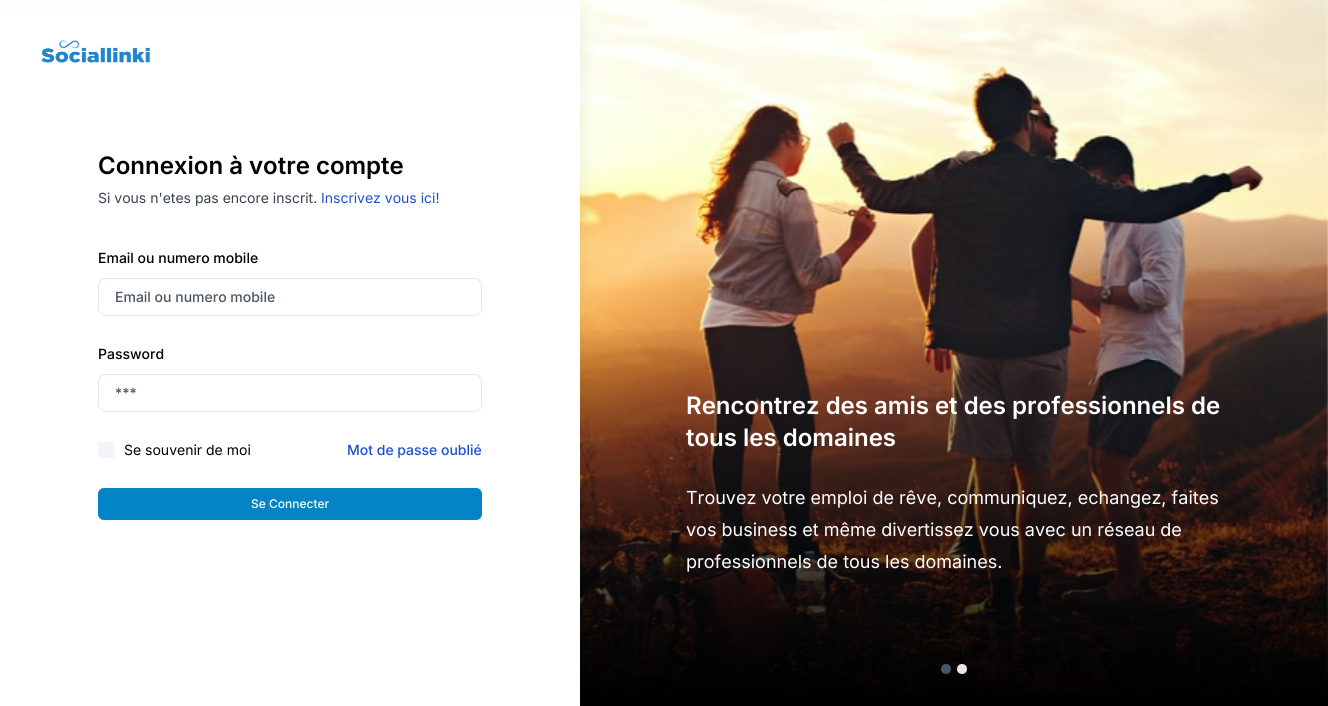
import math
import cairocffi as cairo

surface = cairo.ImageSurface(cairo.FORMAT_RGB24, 1328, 706)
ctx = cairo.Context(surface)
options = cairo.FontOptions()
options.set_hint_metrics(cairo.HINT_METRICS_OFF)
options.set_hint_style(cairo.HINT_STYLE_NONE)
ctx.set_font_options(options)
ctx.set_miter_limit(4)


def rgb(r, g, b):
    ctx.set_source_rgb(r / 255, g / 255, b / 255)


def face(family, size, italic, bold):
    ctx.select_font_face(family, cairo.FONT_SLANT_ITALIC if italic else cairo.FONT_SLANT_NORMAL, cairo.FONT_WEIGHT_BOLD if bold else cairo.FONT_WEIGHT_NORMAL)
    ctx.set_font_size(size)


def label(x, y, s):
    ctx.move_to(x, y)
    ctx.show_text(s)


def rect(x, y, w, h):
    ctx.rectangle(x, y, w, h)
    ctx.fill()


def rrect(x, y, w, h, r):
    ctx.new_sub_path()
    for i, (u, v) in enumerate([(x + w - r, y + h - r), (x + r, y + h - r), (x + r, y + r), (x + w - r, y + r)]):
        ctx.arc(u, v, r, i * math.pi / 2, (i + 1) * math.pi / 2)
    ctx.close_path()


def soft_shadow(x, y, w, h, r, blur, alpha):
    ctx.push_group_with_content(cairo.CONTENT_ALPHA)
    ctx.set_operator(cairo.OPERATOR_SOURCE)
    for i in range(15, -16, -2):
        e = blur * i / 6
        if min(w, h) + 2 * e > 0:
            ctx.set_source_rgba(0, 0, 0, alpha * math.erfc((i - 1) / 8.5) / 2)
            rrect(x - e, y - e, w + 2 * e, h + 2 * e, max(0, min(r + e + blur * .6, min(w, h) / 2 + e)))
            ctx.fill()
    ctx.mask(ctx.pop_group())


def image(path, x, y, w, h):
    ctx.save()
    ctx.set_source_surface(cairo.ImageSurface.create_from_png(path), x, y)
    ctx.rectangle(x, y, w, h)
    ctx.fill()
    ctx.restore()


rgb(255, 255, 255)
ctx.paint()
image('image1.png', 580, 0, 748, 704)
gradient = cairo.LinearGradient(954, 706, 954, 322)
gradient.add_color_stop_rgba(0, 0, 0, 0, 1)
gradient.add_color_stop_rgba(1, 0, 0, 0, 0)
ctx.set_source(gradient)
rect(580, 330, 748, 376)
rgb(0, 0, 0)
soft_shadow(5, 25, 570, 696, 0, 12.5, 0.1)
rgb(255, 255, 255)
rect(0, 9, 580, 697)
image('image0.png', 41, 40, 110, 23)
face('Inter SemiBold', 24, 0, 0)
rgb(0, 0, 0)
label(98, 174, 'Connexion à votre compte')
face('Inter', 14, 0, 0)
rgb(55, 65, 81)
label(98, 203, 'Si vous n\'etes pas encore inscrit.')
rgb(29, 78, 216)
label(321, 203, 'Inscrivez vous ici!')
face('Inter Medium', 14, 0, 0)
rgb(0, 0, 0)
label(98, 263, 'Email ou numero mobile')
rrect(98.5, 278.5, 383, 37, 7.5)
rgb(226, 232, 240)
ctx.set_line_width(1)
ctx.stroke()
rgb(75, 85, 99)
label(115, 302, 'Email ou numero mobile')
rgb(0, 0, 0)
label(98, 359, 'Password')
rrect(98.5, 374.5, 383, 37, 7.5)
rgb(226, 232, 240)
ctx.stroke()
rgb(75, 85, 99)
label(115, 398, '***')
rgb(241, 245, 249)
rect(98, 442, 16, 16)
face('Inter', 14, 0, 0)
rgb(0, 0, 0)
label(124, 455, 'Se souvenir de moi')
face('Inter Medium', 14, 0, 0)
rgb(29, 78, 216)
label(347, 455, 'Mot de passe oublié')
rgb(2, 132, 199)
rrect(98, 488, 384, 32, 6)
ctx.fill()
face('Inter Medium', 12, 0, 0)
rgb(255, 255, 255)
label(251, 508, 'Se Connecter')
face('Inter SemiBold', 24, 0, 0)
label(686, 414, 'Rencontrez des amis et des professionnels de')
label(686, 446, 'tous les domaines')
face('Inter', 18, 0, 0)
label(686, 504, 'Trouvez votre emploi de rêve, communiquez, echangez, faites')
label(686, 536, 'vos business et même divertissez vous avec un réseau de')
label(686, 568, 'professionnels de tous les domaines.')
rgb(71, 85, 105)
ctx.new_path()
ctx.arc(946, 669, 5, 0, 2 * math.pi)
ctx.fill()
rgb(229, 231, 235)
ctx.arc(962, 669, 5, 0, 2 * math.pi)
ctx.fill()
surface.write_to_png('render.png')
